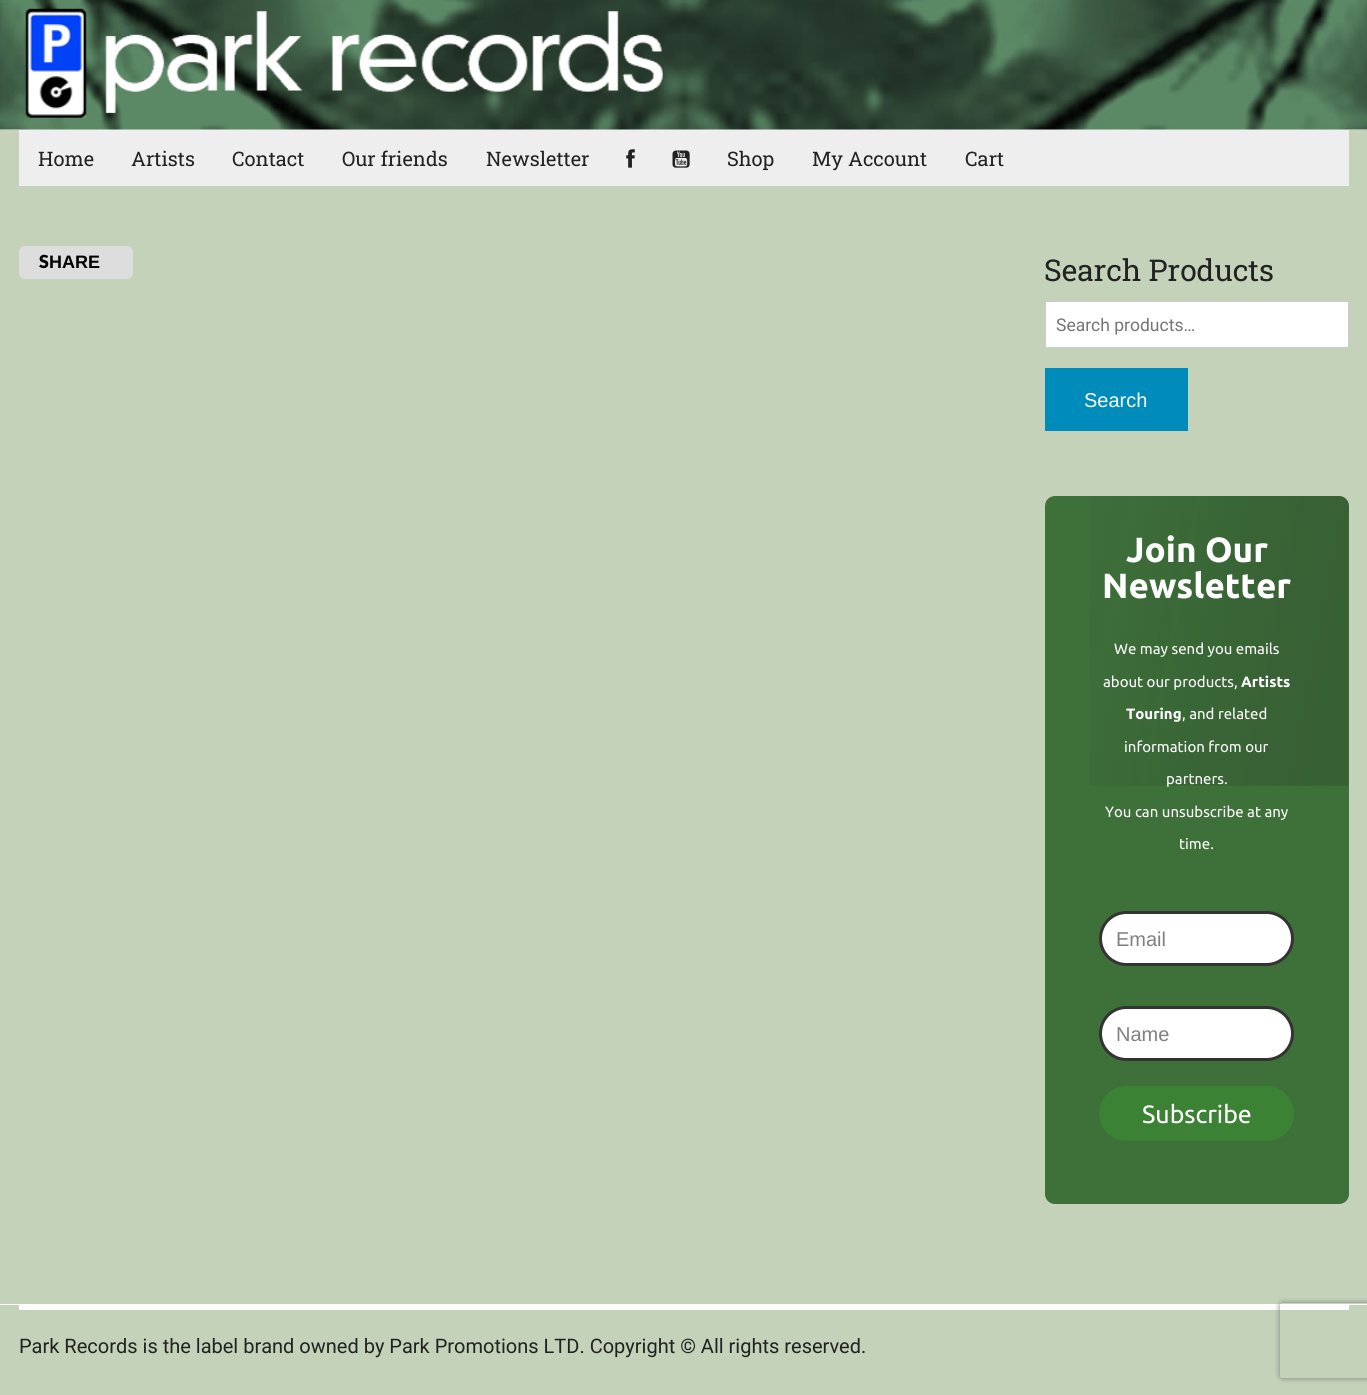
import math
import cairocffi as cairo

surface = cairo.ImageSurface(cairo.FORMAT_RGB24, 1367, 1395)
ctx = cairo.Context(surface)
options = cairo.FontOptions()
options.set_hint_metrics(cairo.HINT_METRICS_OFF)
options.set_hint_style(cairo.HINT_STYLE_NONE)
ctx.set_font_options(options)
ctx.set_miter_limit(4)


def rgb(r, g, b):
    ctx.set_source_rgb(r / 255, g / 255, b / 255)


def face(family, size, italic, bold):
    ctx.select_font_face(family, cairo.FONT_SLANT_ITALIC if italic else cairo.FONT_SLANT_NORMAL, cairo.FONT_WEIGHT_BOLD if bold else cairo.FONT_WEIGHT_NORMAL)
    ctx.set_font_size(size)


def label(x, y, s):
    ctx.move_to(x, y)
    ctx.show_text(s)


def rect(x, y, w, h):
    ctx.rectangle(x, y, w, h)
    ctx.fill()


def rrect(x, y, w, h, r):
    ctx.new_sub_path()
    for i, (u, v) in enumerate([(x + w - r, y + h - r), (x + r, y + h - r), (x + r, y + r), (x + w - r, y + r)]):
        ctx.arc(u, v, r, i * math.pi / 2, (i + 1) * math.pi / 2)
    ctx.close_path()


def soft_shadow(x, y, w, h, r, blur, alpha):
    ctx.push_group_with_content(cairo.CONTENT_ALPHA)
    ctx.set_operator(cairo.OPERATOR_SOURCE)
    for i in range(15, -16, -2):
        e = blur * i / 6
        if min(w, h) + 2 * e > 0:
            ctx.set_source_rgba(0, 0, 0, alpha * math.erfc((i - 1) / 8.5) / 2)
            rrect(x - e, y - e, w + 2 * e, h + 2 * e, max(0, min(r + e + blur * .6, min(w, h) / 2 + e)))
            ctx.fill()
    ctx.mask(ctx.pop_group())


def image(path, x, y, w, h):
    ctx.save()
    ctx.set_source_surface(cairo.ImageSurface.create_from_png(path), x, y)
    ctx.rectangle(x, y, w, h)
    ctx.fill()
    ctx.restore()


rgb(196, 210, 185)
ctx.paint()
rgb(238, 238, 238)
rect(0, 129, 1367, 1)
image('image0.png', 0, 0, 1367, 130)
image('image1.png', 25, 8, 638, 110)
rect(19, 130, 1330, 56)
face('Roboto Slab', 20, 0, 0)
rgb(34, 34, 34)
label(38, 166, 'Home')
label(131, 166, 'Artists')
label(232, 166, 'Contact')
label(342, 166, 'Our friends')
label(486, 166, 'Newsletter')
image('image2.png', 626, 149, 9, 19)
image('image3.png', 672, 150, 18, 18)
label(727, 166, 'Shop')
label(812, 166, 'My Account')
label(965, 166, 'Cart')
rgb(221, 221, 221)
rrect(19, 246, 114, 33, 6)
ctx.fill()
face('Lato Black', 18, 0, 0)
rgb(0, 0, 0)
label(39, 268, 'S')
face('Liberation Sans', 18, 0, 1)
label(49, 268, 'HARE')
face('Roboto Slab', 30, 0, 0)
rgb(34, 34, 34)
label(1044, 281, 'Search Products')
rgb(255, 255, 255)
ctx.rectangle(1045.5, 301.5, 303, 46)
ctx.fill_preserve()
rgb(204, 204, 204)
ctx.set_line_width(1)
ctx.stroke()
face('Roboto', 17.5, 0, 0)
rgb(117, 117, 117)
label(1056, 331, 'Search products…')
rgb(0, 140, 186)
rect(1045, 368, 143, 63)
face('Liberation Sans', 20, 0, 0)
rgb(255, 255, 255)
label(1084, 407, 'Search')
rgb(62, 112, 58)
rrect(1045, 496, 304, 708, 10)
ctx.fill()
image('image4.png', 1090, 496, 259, 290)
face('Ubuntu', 35, 0, 1)
rgb(255, 255, 255)
label(1126, 562, 'Join Our')
label(1102, 598, 'Newsletter')
face('Ubuntu', 15, 0, 0)
label(1114, 654, 'We may send you emails')
label(1103, 687, 'about our products,')
face('Ubuntu', 15, 0, 1)
label(1241, 687, 'Artists')
label(1126, 719, 'Touring')
face('Ubuntu', 15, 0, 0)
label(1182, 719, ', and related')
label(1124, 752, 'information from our')
label(1166, 784, 'partners.')
label(1105, 817, 'You can unsubscribe at any')
label(1179, 849, 'time.')
rrect(1100.5, 912.5, 192, 52, 26)
ctx.fill_preserve()
rgb(51, 51, 51)
ctx.set_line_width(3)
ctx.stroke()
face('Liberation Sans', 20, 0, 0)
rgb(128, 128, 128)
label(1116, 946, 'Email')
rgb(255, 255, 255)
rrect(1100.5, 1007.5, 192, 52, 26)
ctx.fill_preserve()
rgb(51, 51, 51)
ctx.stroke()
rgb(128, 128, 128)
label(1116, 1041, 'Name')
rgb(59, 130, 53)
rrect(1099, 1086, 195, 55, 27.5)
ctx.fill()
face('Ubuntu', 25, 0, 0)
rgb(255, 255, 255)
label(1142, 1123, 'Subscribe')
rect(0, 1304, 1367, 1)
rect(19, 1305, 1330, 5)
face('Roboto', 20, 0, 0)
rgb(34, 34, 34)
label(19, 1353, 'Park Records is the label brand owned by Park Promotions LTD. Copyright © All rights reserved.')
ctx.save()
ctx.set_fill_rule(cairo.FILL_RULE_EVEN_ODD)
ctx.new_path()
ctx.move_to(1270, 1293)
ctx.line_to(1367, 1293)
ctx.line_to(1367, 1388)
ctx.line_to(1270, 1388)
ctx.close_path()
ctx.move_to(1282.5, 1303)
ctx.line_to(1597.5, 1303)
ctx.curve_to(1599, 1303, 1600, 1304, 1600, 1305.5)
ctx.line_to(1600, 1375.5)
ctx.curve_to(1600, 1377, 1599, 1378, 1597.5, 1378)
ctx.line_to(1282.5, 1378)
ctx.curve_to(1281, 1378, 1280, 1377, 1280, 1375.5)
ctx.line_to(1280, 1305.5)
ctx.curve_to(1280, 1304, 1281, 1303, 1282.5, 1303)
ctx.close_path()
ctx.clip()
rgb(128, 128, 128)
soft_shadow(1280, 1303, 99, 75, 2.5, 3, 1)
ctx.restore()
surface.write_to_png('render.png')
